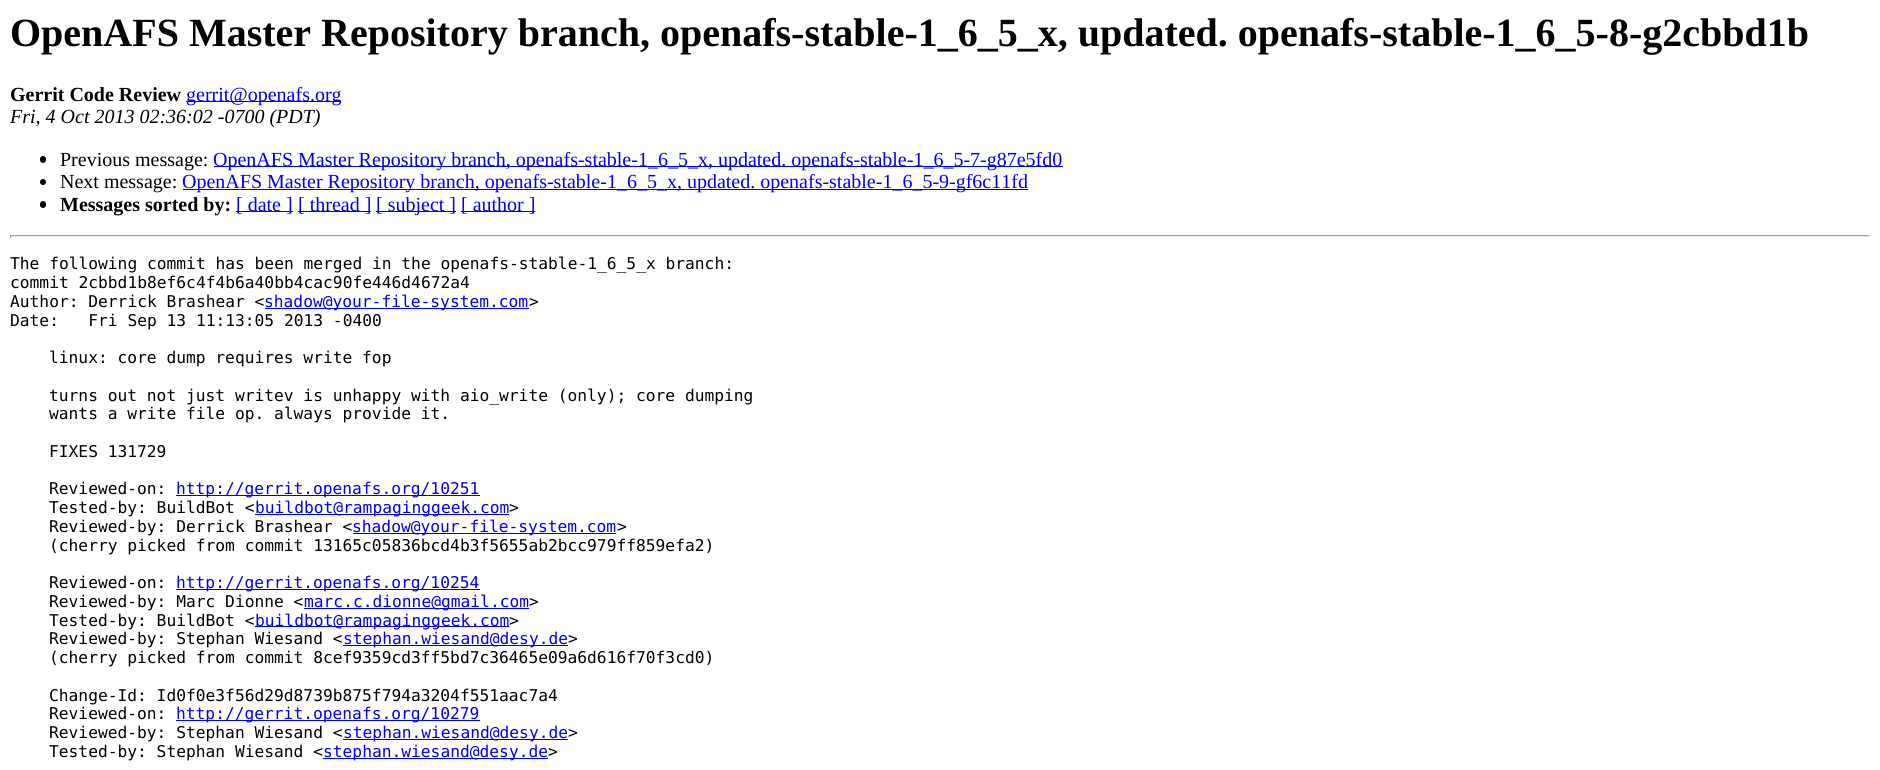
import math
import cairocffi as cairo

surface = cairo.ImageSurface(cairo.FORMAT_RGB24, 1880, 770)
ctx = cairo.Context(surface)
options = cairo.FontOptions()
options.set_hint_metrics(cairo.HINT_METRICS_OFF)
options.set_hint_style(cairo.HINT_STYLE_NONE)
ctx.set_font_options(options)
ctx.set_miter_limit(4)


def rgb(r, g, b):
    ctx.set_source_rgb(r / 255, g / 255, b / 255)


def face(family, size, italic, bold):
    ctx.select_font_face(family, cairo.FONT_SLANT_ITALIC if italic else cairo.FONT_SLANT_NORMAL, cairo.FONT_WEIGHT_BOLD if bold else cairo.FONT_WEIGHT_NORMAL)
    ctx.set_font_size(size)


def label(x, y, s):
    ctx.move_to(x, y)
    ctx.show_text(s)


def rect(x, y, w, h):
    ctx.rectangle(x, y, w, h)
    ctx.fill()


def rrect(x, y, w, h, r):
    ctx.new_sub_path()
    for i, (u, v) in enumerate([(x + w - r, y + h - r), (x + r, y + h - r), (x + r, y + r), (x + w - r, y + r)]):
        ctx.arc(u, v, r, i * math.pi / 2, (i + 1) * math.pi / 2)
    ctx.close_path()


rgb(255, 255, 255)
ctx.paint()
face('Liberation Serif', 40, 0, 1)
rgb(0, 0, 0)
label(10, 46, 'OpenAFS Master Repository branch, openafs-stable-1_6_5_x, updated. openafs-stable-1_6_5-8-g2cbbd1b')
face('Liberation Serif', 20, 0, 1)
label(10, 101, 'Gerrit Code Review')
rgb(0, 0, 238)
rect(186, 101, 155, 1)
face('Liberation Serif', 20, 0, 0)
label(186, 101, 'gerrit@openafs.org')
face('Liberation Serif', 20, 1, 0)
rgb(0, 0, 0)
label(10, 123, 'Fri, 4 Oct 2013 02:36:02 -0700 (PDT)')
rrect(40, 156, 6, 7, 3)
ctx.fill()
face('Liberation Serif', 20, 0, 0)
label(60, 166, 'Previous message:')
rgb(0, 0, 238)
rect(214, 166, 849, 1)
label(213, 166, 'OpenAFS Master Repository branch, openafs-stable-1_6_5_x, updated. openafs-stable-1_6_5-7-g87e5fd0')
rgb(0, 0, 0)
ctx.new_path()
ctx.arc(43, 182, 3, 0, 2 * math.pi)
ctx.fill()
label(60, 188, 'Next message:')
rgb(0, 0, 238)
rect(183, 189, 845, 1)
label(182, 188, 'OpenAFS Master Repository branch, openafs-stable-1_6_5_x, updated. openafs-stable-1_6_5-9-gf6c11fd')
rgb(0, 0, 0)
rrect(40, 201, 6, 7, 3)
ctx.fill()
face('Liberation Serif', 20, 0, 1)
label(60, 211, 'Messages sorted by:')
rgb(0, 0, 238)
rect(236, 211, 57, 1)
face('Liberation Serif', 20, 0, 0)
label(236, 211, '[ date ]')
rect(298, 211, 73, 1)
label(298, 211, '[ thread ]')
rect(376, 211, 80, 1)
label(376, 211, '[ subject ]')
rect(461, 211, 74, 1)
label(461, 211, '[ author ]')
rgb(159, 159, 159)
rect(10, 235, 1860, 1)
rgb(238, 238, 238)
rect(1869, 235, 1, 3)
rect(10, 236, 1860, 1)
rgb(159, 159, 159)
rect(10, 235, 1, 3)
face('DejaVu Sans Mono', 16.25, 0, 0)
rgb(0, 0, 0)
label(10, 269, 'The following commit has been merged in the openafs-stable-1_6_5_x branch:')
label(10, 288, 'commit 2cbbd1b8ef6c4f4b6a40bb4cac90fe446d4672a4')
label(10, 307, 'Author: Derrick Brashear <')
rgb(0, 0, 238)
rect(265, 308, 264, 1)
label(264, 307, 'shadow@your-file-system.com')
rgb(0, 0, 0)
label(529, 307, '>')
label(10, 326, 'Date:   Fri Sep 13 11:13:05 2013 -0400')
label(49, 363, 'linux: core dump requires write fop')
label(49, 401, 'turns out not just writev is unhappy with aio_write (only); core dumping')
label(49, 419, 'wants a write file op. always provide it.')
label(49, 457, 'FIXES 131729')
label(49, 494, 'Reviewed-on:')
rgb(0, 0, 238)
rect(176, 495, 304, 1)
label(176, 494, 'http://gerrit.openafs.org/10251')
rgb(0, 0, 0)
label(49, 513, 'Tested-by: BuildBot <')
rgb(0, 0, 238)
rect(255, 514, 254, 1)
label(255, 513, 'buildbot@rampaginggeek.com')
rgb(0, 0, 0)
label(509, 513, '>')
label(49, 532, 'Reviewed-by: Derrick Brashear <')
rgb(0, 0, 238)
rect(353, 533, 263, 1)
label(352, 532, 'shadow@your-file-system.com')
rgb(0, 0, 0)
label(617, 532, '>')
label(49, 551, '(cherry picked from commit 13165c05836bcd4b3f5655ab2bcc979ff859efa2)')
label(49, 588, 'Reviewed-on:')
rgb(0, 0, 238)
rect(176, 589, 304, 1)
label(176, 588, 'http://gerrit.openafs.org/10254')
rgb(0, 0, 0)
label(49, 607, 'Reviewed-by: Marc Dionne <')
rgb(0, 0, 238)
rect(304, 608, 225, 1)
label(304, 607, 'marc.c.dionne@gmail.com')
rgb(0, 0, 0)
label(529, 607, '>')
label(49, 626, 'Tested-by: BuildBot <')
rgb(0, 0, 238)
rect(255, 626, 254, 1)
label(255, 626, 'buildbot@rampaginggeek.com')
rgb(0, 0, 0)
label(509, 626, '>')
label(49, 644, 'Reviewed-by: Stephan Wiesand <')
rgb(0, 0, 238)
rect(343, 645, 225, 1)
label(343, 644, 'stephan.wiesand@desy.de')
rgb(0, 0, 0)
label(568, 644, '>')
label(49, 663, '(cherry picked from commit 8cef9359cd3ff5bd7c36465e09a6d616f70f3cd0)')
label(49, 701, 'Change-Id: Id0f0e3f56d29d8739b875f794a3204f551aac7a4')
label(49, 719, 'Reviewed-on:')
rgb(0, 0, 238)
rect(176, 720, 304, 1)
label(176, 719, 'http://gerrit.openafs.org/10279')
rgb(0, 0, 0)
label(49, 738, 'Reviewed-by: Stephan Wiesand <')
rgb(0, 0, 238)
rect(343, 739, 225, 1)
label(343, 738, 'stephan.wiesand@desy.de')
rgb(0, 0, 0)
label(568, 738, '>')
label(49, 757, 'Tested-by: Stephan Wiesand <')
rgb(0, 0, 238)
rect(323, 758, 225, 1)
label(323, 757, 'stephan.wiesand@desy.de')
rgb(0, 0, 0)
label(548, 757, '>')
surface.write_to_png('render.png')
